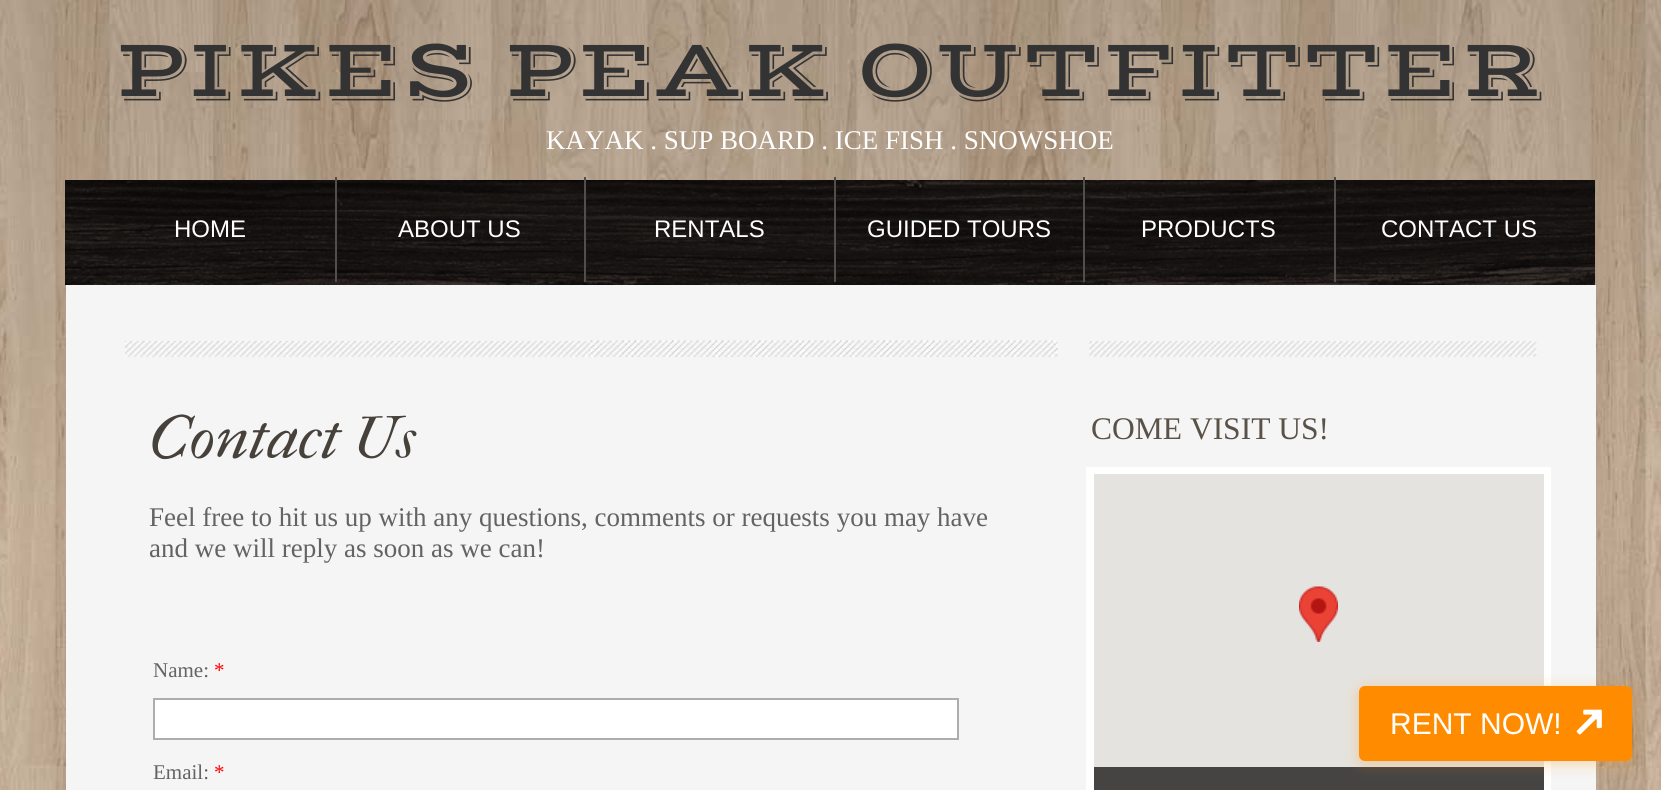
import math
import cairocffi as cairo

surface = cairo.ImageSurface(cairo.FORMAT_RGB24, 1661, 790)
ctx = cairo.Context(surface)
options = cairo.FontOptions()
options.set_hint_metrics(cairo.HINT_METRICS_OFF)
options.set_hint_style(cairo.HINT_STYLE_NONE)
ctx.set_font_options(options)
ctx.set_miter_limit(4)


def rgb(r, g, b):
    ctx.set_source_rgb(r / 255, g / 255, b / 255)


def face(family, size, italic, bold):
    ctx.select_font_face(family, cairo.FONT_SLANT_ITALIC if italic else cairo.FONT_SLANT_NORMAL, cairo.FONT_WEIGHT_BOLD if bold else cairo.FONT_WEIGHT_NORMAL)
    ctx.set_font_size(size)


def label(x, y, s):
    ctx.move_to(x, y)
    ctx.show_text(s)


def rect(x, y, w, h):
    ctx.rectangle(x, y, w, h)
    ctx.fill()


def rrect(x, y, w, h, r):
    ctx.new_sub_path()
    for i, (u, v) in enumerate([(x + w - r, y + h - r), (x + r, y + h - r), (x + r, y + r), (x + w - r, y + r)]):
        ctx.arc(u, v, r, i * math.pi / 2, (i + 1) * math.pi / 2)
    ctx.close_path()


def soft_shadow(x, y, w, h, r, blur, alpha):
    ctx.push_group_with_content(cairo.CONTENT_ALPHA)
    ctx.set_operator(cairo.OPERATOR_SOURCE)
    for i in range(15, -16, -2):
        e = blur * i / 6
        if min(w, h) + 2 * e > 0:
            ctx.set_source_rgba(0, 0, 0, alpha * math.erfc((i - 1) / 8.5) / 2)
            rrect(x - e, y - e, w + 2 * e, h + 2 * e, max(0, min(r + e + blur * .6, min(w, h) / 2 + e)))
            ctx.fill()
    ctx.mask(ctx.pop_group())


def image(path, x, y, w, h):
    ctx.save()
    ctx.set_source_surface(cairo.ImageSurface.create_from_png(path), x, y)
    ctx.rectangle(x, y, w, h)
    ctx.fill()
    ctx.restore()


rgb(255, 255, 255)
ctx.paint()
image('image0.png', 0, 0, 1661, 790)
rgb(245, 245, 245)
rect(66, 285, 1530, 505)
face('Vast Shadow', 84, 0, 0)
rgb(51, 51, 51)
label(115, 96, 'PIKES PEAK OUTFITTER')
face('Liberation Serif', 27, 0, 0)
rgb(255, 255, 255)
label(546, 149, 'KAYAK . SUP BOARD . ICE FISH . SNOWSHOE')
image('image1.png', 65, 180, 1530, 105)
rgb(82, 78, 76)
rect(335, 177, 2, 105)
face('Liberation Sans', 24, 0, 0)
rgb(255, 255, 255)
label(174, 237, 'HOME')
rgb(82, 78, 76)
rect(584, 177, 2, 105)
rgb(255, 255, 255)
label(398, 237, 'ABOUT US')
rgb(82, 78, 76)
rect(834, 177, 2, 105)
rgb(255, 255, 255)
label(654, 237, 'RENTALS')
rgb(82, 78, 76)
rect(1083, 177, 2, 105)
rgb(255, 255, 255)
label(867, 237, 'GUIDED TOURS')
rgb(82, 78, 76)
rect(1334, 177, 2, 105)
rgb(255, 255, 255)
label(1141, 237, 'PRODUCTS')
label(1381, 237, 'CONTACT US')
image('image2.png', 125, 341, 467, 17)
image('image3.png', 591, 340, 467, 17)
image('image4.png', 1089, 341, 448, 17)
face('IM FELL French Canon', 60, 1, 0)
rgb(71, 65, 60)
label(149, 458, 'Contact Us')
face('Liberation Serif', 27, 0, 0)
rgb(99, 99, 99)
label(149, 526, 'Feel free to hit us up with any questions, comments or requests you may have')
label(149, 557, 'and we will reply as soon as we can!')
face('Liberation Serif', 31.5, 0, 0)
rgb(90, 82, 72)
label(1091, 439, 'COME VISIT US!')
face('Liberation Serif', 21, 0, 0)
rgb(99, 99, 99)
label(153, 677, 'Name:')
rgb(255, 0, 0)
label(214, 677, '*')
rgb(255, 255, 255)
ctx.rectangle(154, 699, 804, 40)
ctx.fill_preserve()
rgb(173, 173, 173)
ctx.stroke()
ctx.rectangle(1090, 471, 457, 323)
rgb(255, 255, 255)
ctx.set_line_width(8)
ctx.stroke()
rgb(229, 227, 223)
rect(1094, 474, 450, 293)
image('image5.png', 1299, 586, 39, 56)
rgb(69, 68, 67)
rect(1094, 767, 450, 23)
rgb(99, 99, 99)
label(153, 779, 'Email:')
rgb(255, 0, 0)
label(214, 779, '*')
rgb(255, 140, 0)
soft_shadow(1359, 689, 273, 75, 6, 7.5, 0.3)
rgb(255, 140, 0)
rrect(1360, 687, 271, 73, 5)
ctx.fill_preserve()
ctx.set_line_width(2)
ctx.stroke()
face('Liberation Sans', 30, 0, 0)
rgb(255, 255, 255)
label(1390, 734, 'RENT NOW!')
image('image6.png', 1576, 709, 26, 26)
surface.write_to_png('render.png')
